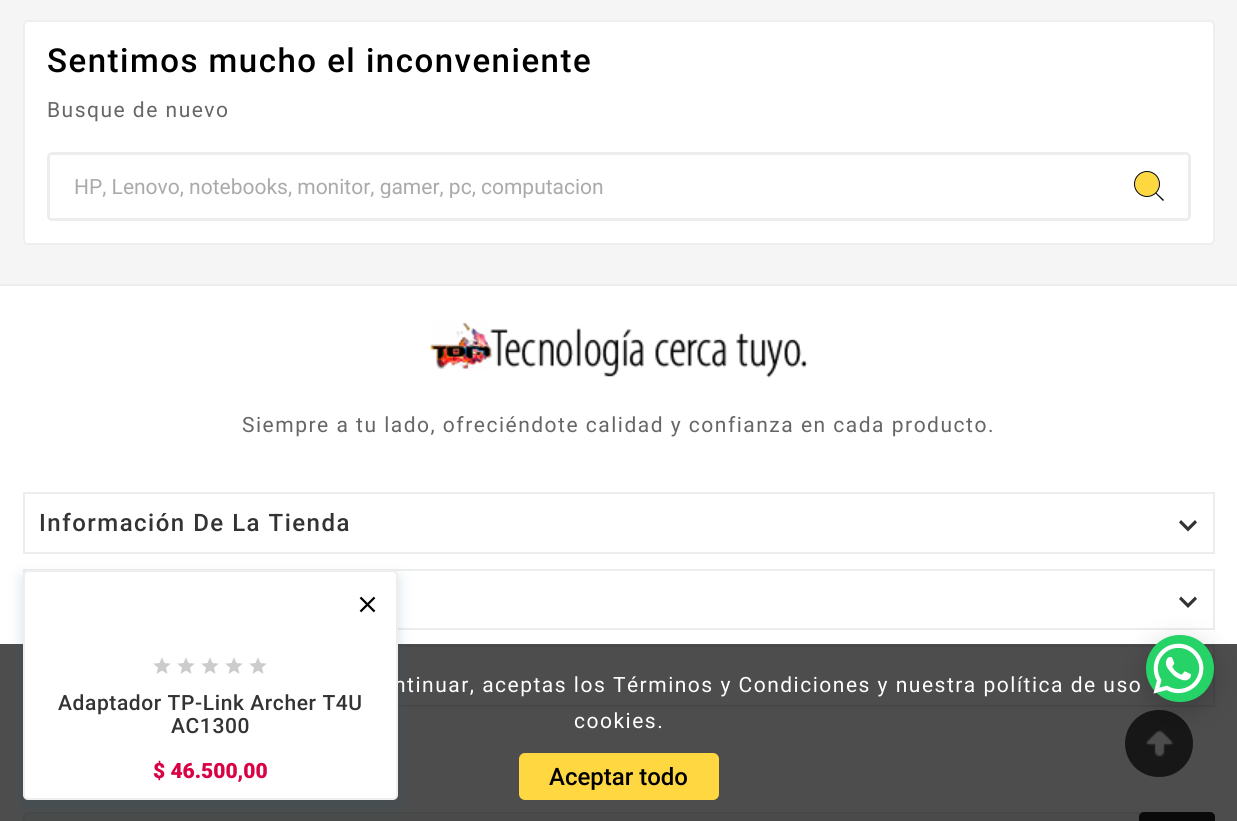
import math
import cairocffi as cairo

surface = cairo.ImageSurface(cairo.FORMAT_RGB24, 1237, 821)
ctx = cairo.Context(surface)
options = cairo.FontOptions()
options.set_hint_metrics(cairo.HINT_METRICS_OFF)
options.set_hint_style(cairo.HINT_STYLE_NONE)
ctx.set_font_options(options)
ctx.set_miter_limit(4)


def rgb(r, g, b):
    ctx.set_source_rgb(r / 255, g / 255, b / 255)


def face(family, size, italic, bold):
    ctx.select_font_face(family, cairo.FONT_SLANT_ITALIC if italic else cairo.FONT_SLANT_NORMAL, cairo.FONT_WEIGHT_BOLD if bold else cairo.FONT_WEIGHT_NORMAL)
    ctx.set_font_size(size)


def label(x, y, s):
    ctx.move_to(x, y)
    ctx.show_text(s)


def tracked(x, y, s, letter, word):
    ctx.move_to(x, y)
    for ch in s:
        ctx.show_text(ch)
        ctx.rel_move_to(letter + word * (ch == ' '), 0)


def rect(x, y, w, h):
    ctx.rectangle(x, y, w, h)
    ctx.fill()


def rrect(x, y, w, h, r):
    ctx.new_sub_path()
    for i, (u, v) in enumerate([(x + w - r, y + h - r), (x + r, y + h - r), (x + r, y + r), (x + w - r, y + r)]):
        ctx.arc(u, v, r, i * math.pi / 2, (i + 1) * math.pi / 2)
    ctx.close_path()


def soft_shadow(x, y, w, h, r, blur, alpha):
    ctx.push_group_with_content(cairo.CONTENT_ALPHA)
    ctx.set_operator(cairo.OPERATOR_SOURCE)
    for i in range(15, -16, -2):
        e = blur * i / 6
        if min(w, h) + 2 * e > 0:
            ctx.set_source_rgba(0, 0, 0, alpha * math.erfc((i - 1) / 8.5) / 2)
            rrect(x - e, y - e, w + 2 * e, h + 2 * e, max(0, min(r + e + blur * .6, min(w, h) / 2 + e)))
            ctx.fill()
    ctx.mask(ctx.pop_group())


def image(path, x, y, w, h):
    ctx.save()
    ctx.set_source_surface(cairo.ImageSurface.create_from_png(path), x, y)
    ctx.rectangle(x, y, w, h)
    ctx.fill()
    ctx.restore()


rgb(245, 245, 245)
ctx.paint()
rgb(255, 255, 255)
rrect(23, 20, 1192, 225, 5)
ctx.fill()
rrect(24, 21, 1190, 223, 4)
ctx.set_source_rgba(0, 0, 0, 0.07)
ctx.stroke()
face('Roboto Medium', 33, 0, 0)
rgb(0, 0, 0)
tracked(47, 72, 'Sentimos mucho el inconveniente', 1.5, 0)
face('Roboto', 21, 0, 0)
rgb(102, 102, 102)
tracked(47, 117, 'Busque de nuevo', 1.5, 0)
rrect(48.5, 153.5, 1141, 66, 3.5)
rgb(237, 237, 237)
ctx.set_line_width(3)
ctx.stroke()
rgb(255, 255, 255)
rect(50, 155, 1, 63)
ctx.save()
ctx.rectangle(74, 174, 1036, 24)
ctx.clip()
rgb(170, 170, 170)
label(74, 194, 'HP, Lenovo, notebooks, monitor, gamer, pc, computacion')
ctx.restore()
rect(1187, 155, 1, 63)
rgb(0, 0, 0)
ctx.new_path()
ctx.move_to(1163, 201)
ctx.line_to(1155.5, 193.5)
ctx.line_to(1156, 192.5)
ctx.line_to(1164, 200)
ctx.close_path()
ctx.fill()
rgb(255, 215, 65)
ctx.arc(1147, 184, 12, 0, 2 * math.pi)
ctx.fill()
ctx.arc(1147, 184, 12.5, 0, 2 * math.pi)
rgb(0, 0, 0)
ctx.set_line_width(1)
ctx.stroke()
rgb(255, 255, 255)
rect(0, 286, 1237, 358)
rgb(77, 77, 77)
rect(0, 644, 1237, 177)
rgb(237, 237, 237)
rect(0, 284, 1237, 2)
image('image0.png', 430, 322, 378, 56)
rgb(102, 102, 102)
tracked(242, 432, 'Siempre a tu lado, ofreciéndote calidad y confianza en cada producto.', 1.5, 0)
ctx.rectangle(24, 493, 1190, 60)
rgb(237, 237, 237)
ctx.set_line_width(2)
ctx.stroke()
face('Roboto Medium', 24, 0, 0)
rgb(51, 51, 51)
tracked(39, 531, 'Información De La Tienda', 1.5, 0)
ctx.new_path()
ctx.move_to(1181, 520)
ctx.line_to(1188, 527)
ctx.line_to(1195, 520)
ctx.line_to(1197, 522.5)
ctx.line_to(1188, 531.5)
ctx.line_to(1179, 522.5)
ctx.close_path()
ctx.fill()
ctx.rectangle(24, 570, 1190, 59)
rgb(237, 237, 237)
ctx.stroke()
rgb(51, 51, 51)
ctx.new_path()
ctx.move_to(1181, 596.5)
ctx.line_to(1188, 603.5)
ctx.line_to(1195, 596.5)
ctx.line_to(1197, 599)
ctx.line_to(1188, 608)
ctx.line_to(1179, 599)
ctx.close_path()
ctx.fill()
ctx.rectangle(24, 646, 1190, 60)
rgb(71, 71, 71)
ctx.stroke()
rgb(74, 74, 74)
rrect(24, 813, 1190, 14, 4)
ctx.fill_preserve()
rgb(71, 71, 71)
ctx.stroke()
rgb(10, 10, 10)
rrect(1139, 812, 76, 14, 5)
ctx.fill()
rgb(23, 23, 23)
rrect(1125, 710, 68, 67, 33.5)
ctx.fill()
image('image2.png', 1145, 730, 29, 27)
rgb(0, 0, 0)
soft_shadow(1146, 644, 68, 67, 33.5, 13.5, 0.18)
rgb(37, 211, 102)
rrect(1146, 635, 68, 67, 33.5)
ctx.fill()
image('image1.png', 1153, 643, 51, 51)
rgb(23, 84, 116)
soft_shadow(23, 578, 375, 229, 0, 7.5, 0.18)
rgb(255, 255, 255)
rrect(23, 570, 375, 230, 5)
ctx.fill()
face('Roboto', 21, 0, 0)
tracked(394, 692, 'ntinuar, aceptas los Términos y Condiciones y nuestra política de uso', 1.5, 0)
rrect(24, 571, 373, 228, 4)
ctx.set_source_rgba(0, 0, 0, 0.07)
ctx.stroke()
image('image3.png', 359, 596, 17, 17)
image('image4.png', 153, 657, 18, 17)
image('image4.png', 177, 657, 18, 17)
image('image4.png', 201, 657, 18, 17)
image('image4.png', 225, 657, 18, 17)
image('image4.png', 249, 657, 18, 17)
face('Roboto Medium', 21, 0, 0)
rgb(51, 51, 51)
tracked(58, 710, 'Adaptador TP-Link Archer T4U', 0.6, 0)
tracked(171, 733, 'AC1300', 0.6, 0)
face('Roboto Black', 21, 0, 0)
rgb(217, 2, 68)
label(153, 778, '$ 46.500,00')
face('Roboto', 21, 0, 0)
rgb(255, 255, 255)
tracked(574, 728, 'cookies.', 1.5, 0)
rgb(255, 215, 65)
rrect(519, 753, 200, 47, 6)
ctx.fill()
face('Roboto Medium', 24, 0, 0)
rgb(0, 0, 0)
label(549, 785, 'Aceptar todo')
surface.write_to_png('render.png')
